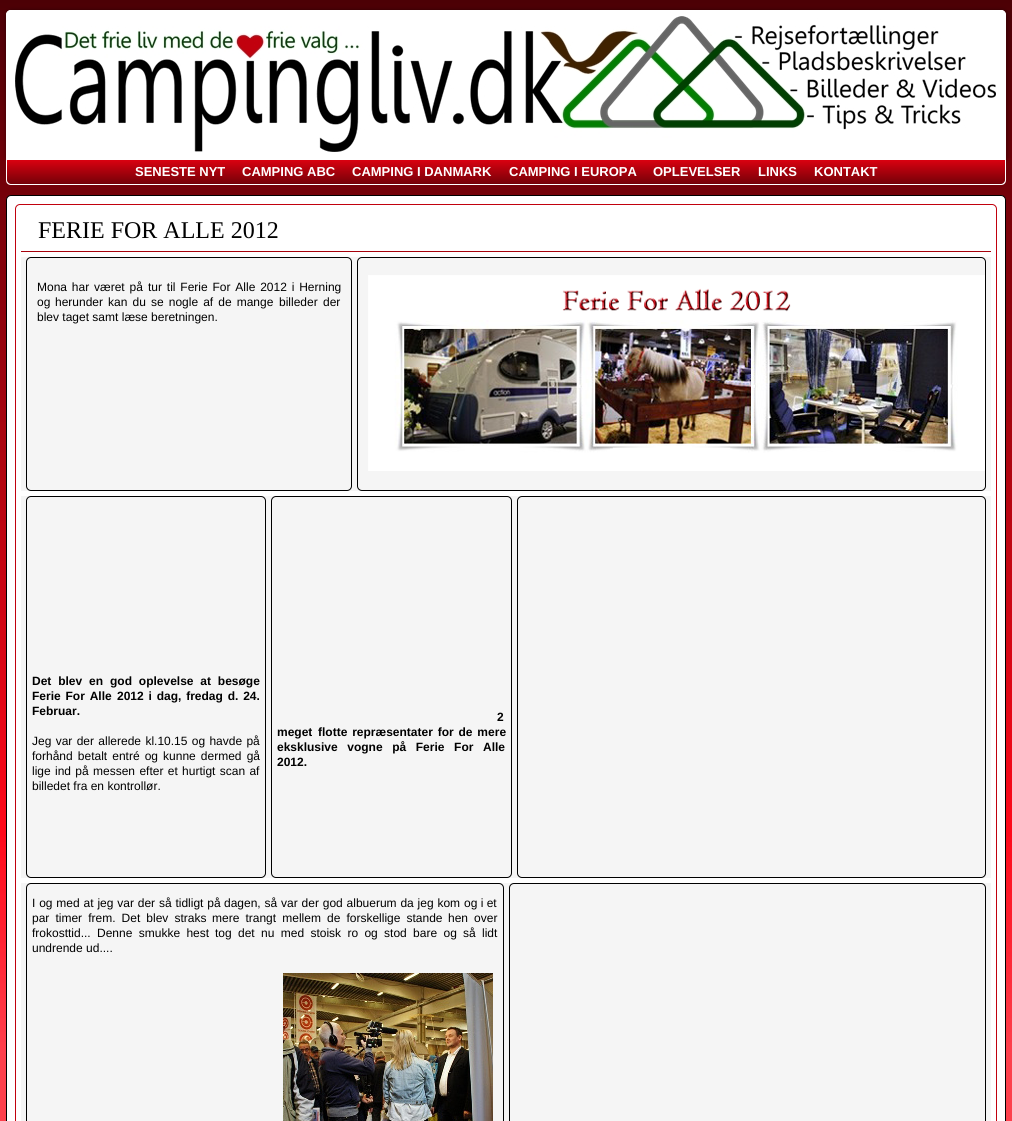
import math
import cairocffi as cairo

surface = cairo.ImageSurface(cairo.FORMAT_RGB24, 1012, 1121)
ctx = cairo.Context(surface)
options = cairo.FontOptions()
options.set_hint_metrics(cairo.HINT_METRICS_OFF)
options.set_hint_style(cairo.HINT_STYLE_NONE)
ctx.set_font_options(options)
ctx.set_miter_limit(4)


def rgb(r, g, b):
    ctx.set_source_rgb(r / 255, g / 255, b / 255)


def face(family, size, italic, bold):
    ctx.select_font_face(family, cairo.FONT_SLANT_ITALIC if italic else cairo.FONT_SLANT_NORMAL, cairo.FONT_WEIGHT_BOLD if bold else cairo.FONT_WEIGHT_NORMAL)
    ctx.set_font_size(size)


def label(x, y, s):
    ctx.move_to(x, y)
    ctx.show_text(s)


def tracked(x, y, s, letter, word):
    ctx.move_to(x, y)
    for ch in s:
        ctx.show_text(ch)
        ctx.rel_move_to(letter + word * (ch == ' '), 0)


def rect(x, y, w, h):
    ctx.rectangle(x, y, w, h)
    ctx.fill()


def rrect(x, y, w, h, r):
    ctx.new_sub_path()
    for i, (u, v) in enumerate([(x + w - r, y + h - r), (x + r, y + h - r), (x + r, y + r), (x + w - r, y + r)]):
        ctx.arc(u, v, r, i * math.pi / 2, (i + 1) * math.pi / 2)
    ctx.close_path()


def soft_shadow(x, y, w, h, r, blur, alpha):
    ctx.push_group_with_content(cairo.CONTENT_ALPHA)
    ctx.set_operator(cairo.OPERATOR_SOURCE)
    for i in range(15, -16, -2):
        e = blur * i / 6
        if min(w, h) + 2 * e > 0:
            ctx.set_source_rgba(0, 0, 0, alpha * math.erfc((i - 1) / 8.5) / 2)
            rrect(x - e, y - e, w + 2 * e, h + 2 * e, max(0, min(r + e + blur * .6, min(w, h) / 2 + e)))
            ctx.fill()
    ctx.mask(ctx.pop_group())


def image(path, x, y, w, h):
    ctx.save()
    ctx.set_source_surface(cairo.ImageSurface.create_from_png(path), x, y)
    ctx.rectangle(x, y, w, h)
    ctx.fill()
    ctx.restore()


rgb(255, 255, 255)
ctx.paint()
gradient = cairo.LinearGradient(506, 0, 506, 1121)
gradient.add_color_stop_rgba(0, 0.337, 0, 0.024, 1)
gradient.add_color_stop_rgba(0.74, 0.996, 0.004, 0.071, 1)
gradient.add_color_stop_rgba(0.94, 0.996, 0.184, 0.239, 1)
ctx.set_source(gradient)
rect(0, 0, 1012, 1121)
gradient = cairo.LinearGradient(506, 0, 506, 1121)
gradient.add_color_stop_rgba(0, 0.129, 0, 0.008, 0.18)
gradient.add_color_stop_rgba(0.74, 0.996, 0.125, 0.184, 0.25)
gradient.add_color_stop_rgba(0.94, 0.996, 0.392, 0.431, 0.32)
ctx.set_source(gradient)
rect(0, 0, 1012, 1121)
rgb(0, 0, 0)
soft_shadow(5, 9, 1004, 154, 7, 1.5, 0.25)
image('image0.png', 6, 10, 1000, 149)
ctx.new_path()
ctx.move_to(11, 10.5)
ctx.line_to(1001, 10.5)
ctx.curve_to(1003.5, 10.5, 1005.5, 12.5, 1005.5, 15)
ctx.line_to(1005.5, 159.5)
ctx.line_to(6.5, 159.5)
ctx.line_to(6.5, 15)
ctx.curve_to(6.5, 12.5, 8.5, 10.5, 11, 10.5)
ctx.close_path()
rgb(255, 255, 255)
ctx.set_line_width(1)
ctx.stroke()
gradient = cairo.LinearGradient(506, 160, 506, 185)
gradient.add_color_stop_rgba(0, 0.855, 0.004, 0.063, 1)
gradient.add_color_stop_rgba(1, 0.439, 0.004, 0.031, 1)
ctx.set_source(gradient)
ctx.new_path()
ctx.move_to(6, 160)
ctx.line_to(1006, 160)
ctx.line_to(1006, 180)
ctx.curve_to(1006, 183, 1004, 185, 1001, 185)
ctx.line_to(11, 185)
ctx.curve_to(8, 185, 6, 183, 6, 180)
ctx.close_path()
ctx.fill()
rgb(255, 255, 255)
ctx.set_fill_rule(cairo.FILL_RULE_EVEN_ODD)
ctx.new_path()
ctx.move_to(6, 160)
ctx.line_to(1006, 160)
ctx.line_to(1006, 180)
ctx.curve_to(1006, 183, 1004, 185, 1001, 185)
ctx.line_to(11, 185)
ctx.curve_to(8, 185, 6, 183, 6, 180)
ctx.close_path()
ctx.move_to(7, 160)
ctx.line_to(1005, 160)
ctx.line_to(1005, 180)
ctx.curve_to(1005, 182, 1003, 184, 1001, 184)
ctx.line_to(11, 184)
ctx.curve_to(9, 184, 7, 182, 7, 180)
ctx.close_path()
ctx.fill()
face('Liberation Sans', 13, 0, 1)
label(135, 176, 'SENESTE NYT')
label(242, 176, 'CAMPING ABC')
label(352, 176, 'CAMPING I DANMARK')
label(509, 176, 'CAMPING I EUROPA')
label(653, 176, 'OPLEVELSER')
label(758, 176, 'LINKS')
label(814, 176, 'KONTAKT')
rrect(6.5, 195.5, 999, 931, 4.5)
ctx.fill_preserve()
rgb(0, 0, 0)
ctx.stroke()
rrect(15.5, 204.5, 981, 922, 4.5)
rgb(193, 1, 14)
ctx.stroke()
rgb(167, 1, 12)
rect(21, 251, 970, 1)
face('Liberation Serif', 24, 0, 0)
rgb(0, 0, 0)
label(38, 238, 'FERIE FOR ALLE 2012')
rgb(245, 245, 245)
rect(21, 257, 970, 234)
rrect(26.5, 257.5, 325, 233, 4.5)
rgb(0, 0, 0)
ctx.stroke()
face('Liberation Sans', 12, 0, 0)
tracked(37, 291, 'Mona har været på', 0, 1.5)
tracked(148, 291, 'tur til Ferie For Alle 2012 i Herning', 0, 1.5)
label(37, 306, 'og')
tracked(55, 306, 'herunder kan du se nogle af de mange', 0, 1.75)
tracked(279, 306, 'billeder der', 0, 2)
label(37, 321, 'blev taget samt læse beretningen.')
rrect(357.5, 257.5, 628, 233, 4.5)
ctx.stroke()
image('image1.png', 368, 275, 617, 196)
rgb(245, 245, 245)
rect(21, 496, 970, 382)
rrect(26.5, 496.5, 239, 381, 4.5)
rgb(0, 0, 0)
ctx.stroke()
face('Liberation Sans', 12, 0, 1)
tracked(32, 685, 'Det blev en', 0, 3.5)
tracked(110, 685, 'god oplevelse at besøge', 0, 3.5)
tracked(32, 700, 'Ferie For Alle', 0, 1.5)
tracked(117, 700, '2012 i dag, fredag d. 24.', 0, 1.5)
label(32, 715, 'Februar.')
face('Liberation Sans', 12, 0, 0)
tracked(32, 745, 'Jeg var der allerede kl.10.15 og havde på', 0, 1)
tracked(32, 760, 'forhånd betalt entré og kunne dermed gå', 0, 1.75)
label(32, 775, 'lige')
tracked(55, 775, 'ind på messen efter et hurtigt scan af', 0, 1)
label(32, 790, 'billedet fra en kontrollør.')
rrect(271.5, 496.5, 240, 381, 4.5)
ctx.stroke()
face('Liberation Sans', 12, 0, 1)
label(497, 721, '2')
label(277, 736, 'meget')
tracked(318, 736, 'flotte repræsentater for de mere', 0, 1.5)
tracked(277, 751, 'eksklusive vogne på Ferie For Alle', 0, 6.25)
label(277, 766, '2012.')
rrect(517.5, 496.5, 468, 381, 4.5)
ctx.stroke()
rgb(245, 245, 245)
rect(21, 883, 970, 238)
rrect(26.5, 883.5, 477, 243, 4.5)
rgb(0, 0, 0)
ctx.stroke()
face('Liberation Sans', 12, 0, 0)
tracked(32, 907, 'I og med at jeg var der så tidligt på', 0, 0.5)
tracked(224, 907, 'dagen, så var der god albuerum da jeg kom', 0, 0.5)
label(464, 907, 'og i et')
tracked(32, 922, 'par timer frem. Det blev straks', 0, 2.75)
tracked(212, 922, 'mere trangt mellem de forskellige stande', 0, 2.75)
tracked(448, 922, 'hen over', 0, 2.75)
tracked(32, 937, 'frokosttid... Denne smukke hest', 0, 3)
tracked(215, 937, 'tog det nu med stoisk ro og stod bare og', 0, 3)
tracked(463, 937, 'så lidt', 0, 3)
label(32, 952, 'undrende ud....')
image('image2.png', 283, 973, 210, 148)
rrect(509.5, 883.5, 476, 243, 4.5)
ctx.stroke()
surface.write_to_png('render.png')
